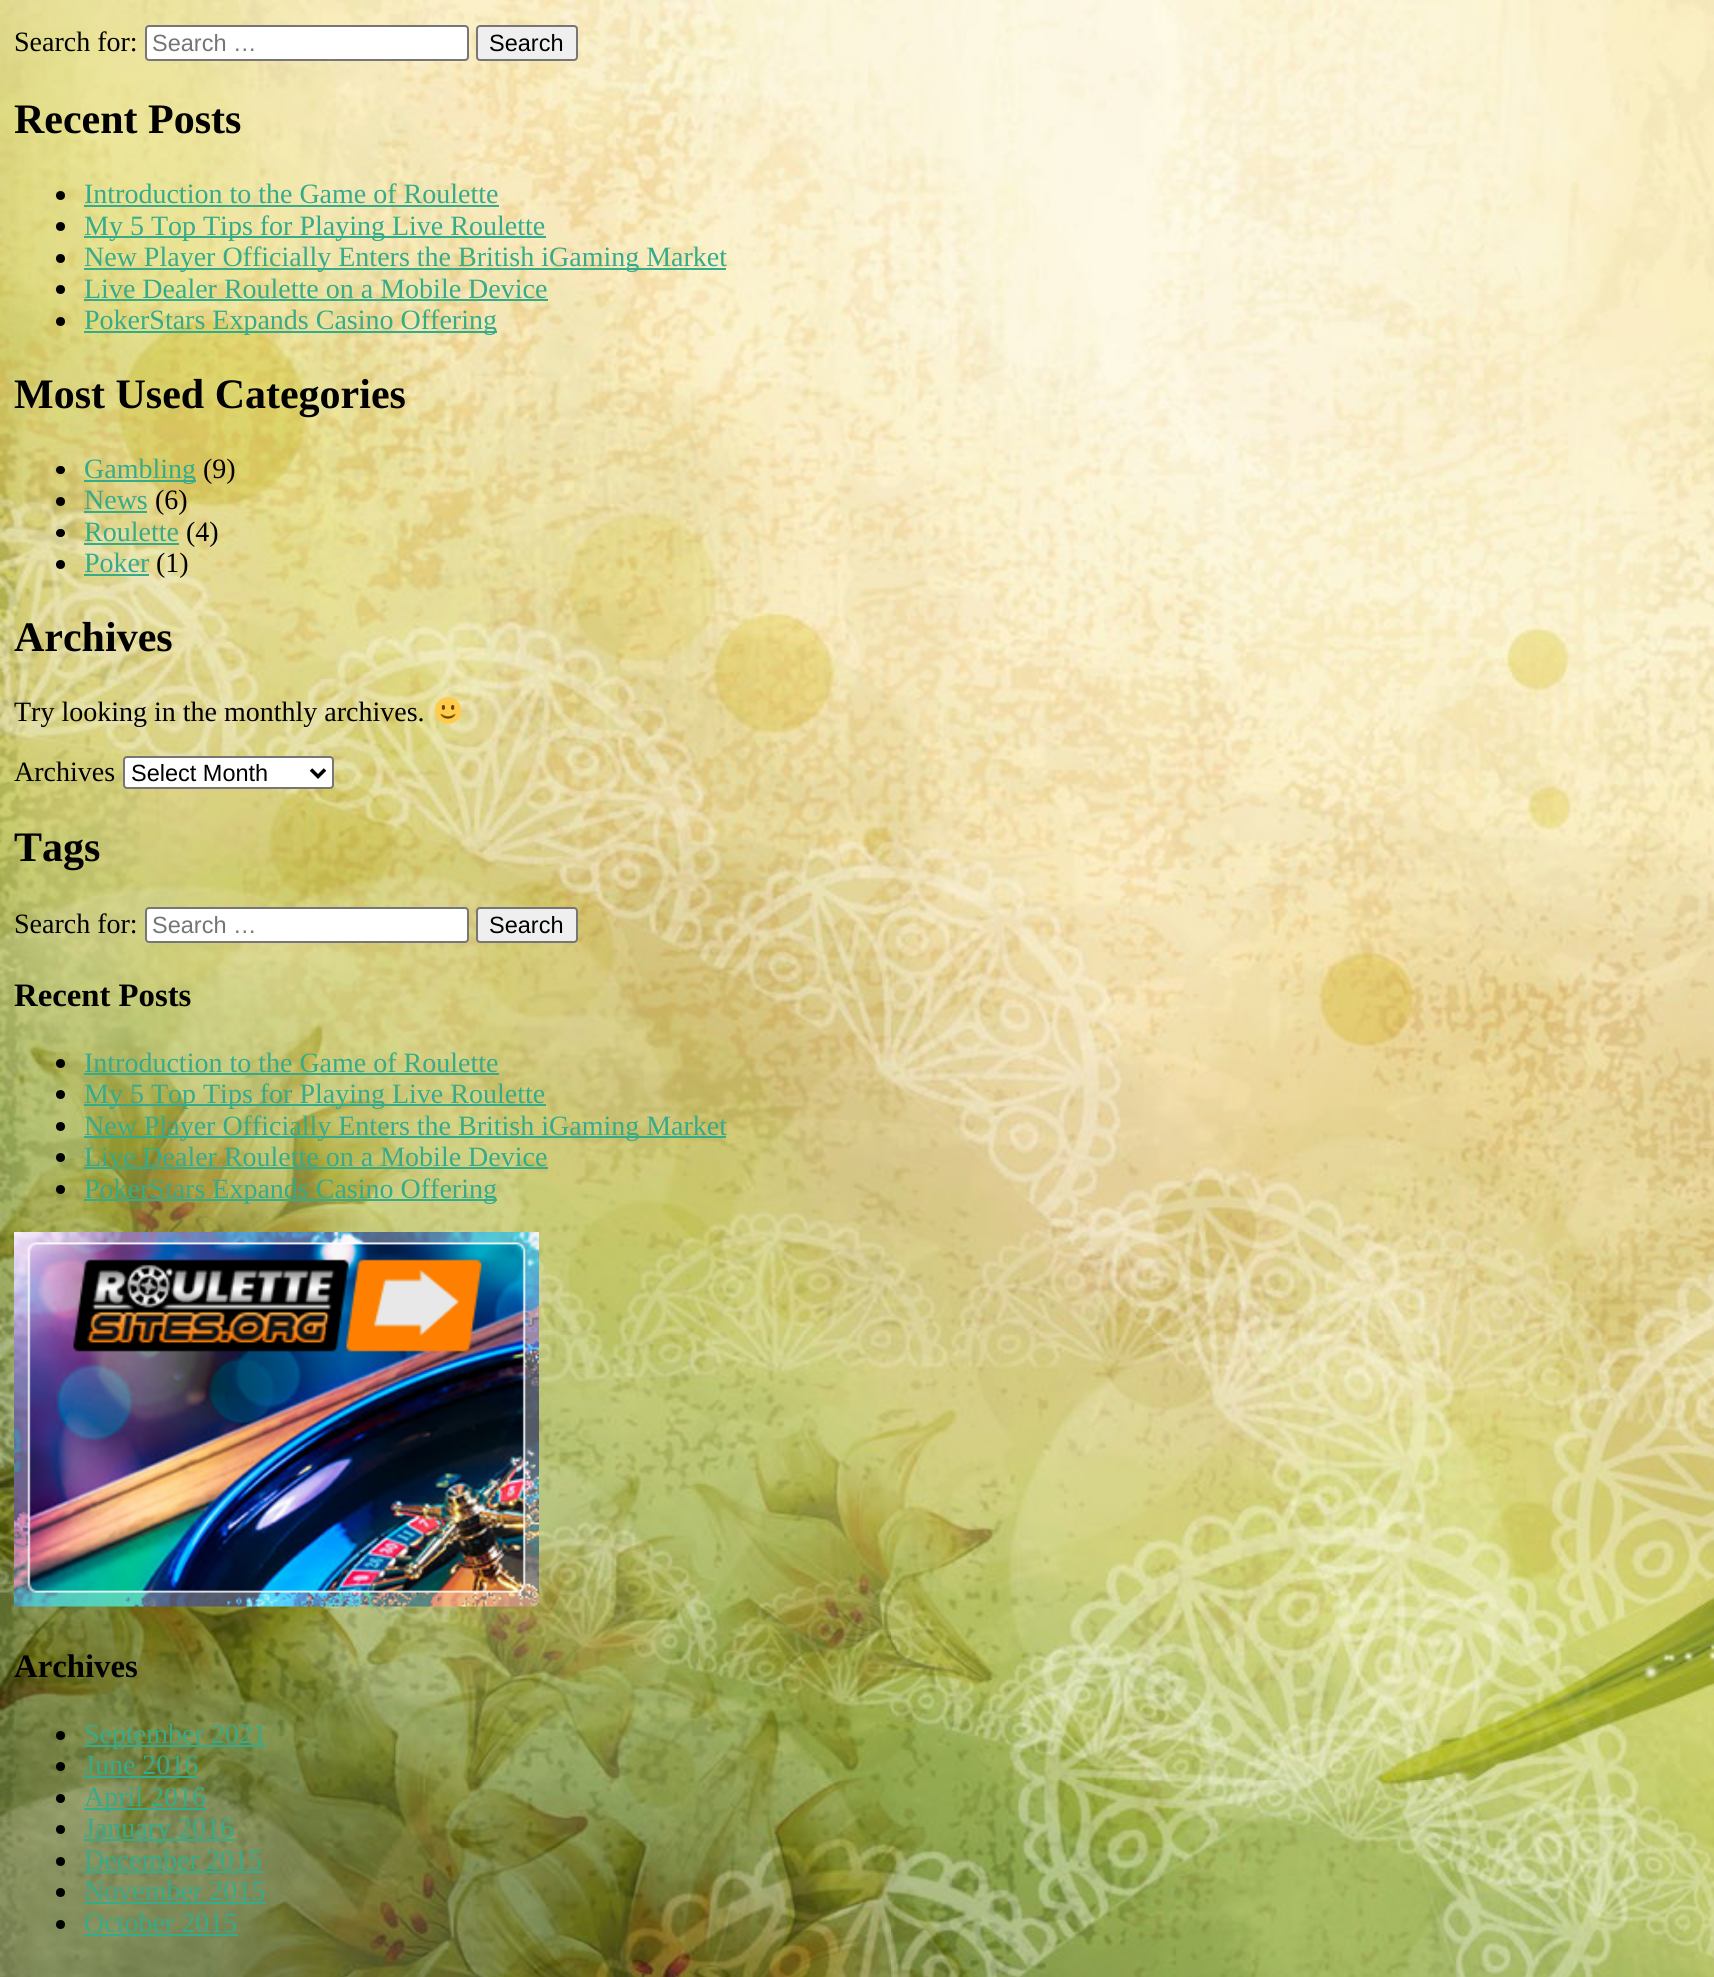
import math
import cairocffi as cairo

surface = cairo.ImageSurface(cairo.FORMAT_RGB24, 1714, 1977)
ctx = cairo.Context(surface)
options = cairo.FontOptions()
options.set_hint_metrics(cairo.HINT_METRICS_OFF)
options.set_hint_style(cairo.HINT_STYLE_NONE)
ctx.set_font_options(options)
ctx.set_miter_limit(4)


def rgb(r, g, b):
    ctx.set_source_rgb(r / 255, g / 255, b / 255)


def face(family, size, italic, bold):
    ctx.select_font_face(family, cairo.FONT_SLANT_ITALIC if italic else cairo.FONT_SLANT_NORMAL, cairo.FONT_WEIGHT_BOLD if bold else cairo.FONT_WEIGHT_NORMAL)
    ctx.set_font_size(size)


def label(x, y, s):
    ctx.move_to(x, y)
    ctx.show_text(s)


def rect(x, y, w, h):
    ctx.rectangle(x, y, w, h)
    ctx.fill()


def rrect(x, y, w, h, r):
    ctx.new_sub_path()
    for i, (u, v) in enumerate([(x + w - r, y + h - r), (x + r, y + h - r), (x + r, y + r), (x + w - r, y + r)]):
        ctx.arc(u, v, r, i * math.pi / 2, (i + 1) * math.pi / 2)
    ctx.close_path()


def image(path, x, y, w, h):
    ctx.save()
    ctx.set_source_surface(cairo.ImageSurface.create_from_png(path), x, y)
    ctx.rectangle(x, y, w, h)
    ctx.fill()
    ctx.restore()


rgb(255, 255, 255)
ctx.paint()
image('image0.png', 0, 0, 1714, 1977)
face('Liberation Serif', 28, 0, 0)
rgb(0, 0, 0)
label(14, 51, 'Search for:')
rgb(255, 255, 255)
rrect(146, 26, 322, 34, 3)
ctx.fill_preserve()
rgb(118, 118, 118)
ctx.stroke()
face('Liberation Sans', 23.5, 0, 0)
rgb(117, 117, 117)
label(152, 51, 'Search …')
rgb(239, 239, 239)
rrect(477, 26, 100, 34, 3)
ctx.fill_preserve()
rgb(118, 118, 118)
ctx.stroke()
rgb(0, 0, 0)
label(489, 51, 'Search')
face('Liberation Serif', 42, 0, 1)
label(14, 133, 'Recent Posts')
ctx.new_path()
ctx.arc(60.5, 195.5, 4.5, 0, 2 * math.pi)
ctx.fill()
face('Liberation Serif', 28, 0, 0)
rgb(54, 171, 138)
label(84, 203, 'Introduction to the Game of Roulette')
rect(84, 205, 415, 2)
rgb(0, 0, 0)
ctx.new_path()
ctx.arc(60.5, 226.5, 4.5, 0, 2 * math.pi)
ctx.fill()
rgb(54, 171, 138)
rect(84, 236, 462, 2)
label(84, 235, 'My 5 Top Tips for Playing Live Roulette')
rgb(0, 0, 0)
ctx.new_path()
ctx.arc(60.5, 258.5, 4.5, 0, 2 * math.pi)
ctx.fill()
rgb(54, 171, 138)
rect(84, 268, 642, 2)
label(84, 266, 'New Player Officially Enters the British iGaming Market')
rgb(0, 0, 0)
ctx.new_path()
ctx.arc(60.5, 289.5, 4.5, 0, 2 * math.pi)
ctx.fill()
rgb(54, 171, 138)
label(84, 298, 'Live Dealer Roulette on a Mobile Device')
rect(84, 299, 464, 2)
rgb(0, 0, 0)
ctx.new_path()
ctx.arc(60.5, 321.5, 4.5, 0, 2 * math.pi)
ctx.fill()
rgb(54, 171, 138)
rect(84, 331, 413, 2)
label(84, 329, 'PokerStars Expands Casino Offering')
face('Liberation Serif', 42, 0, 1)
rgb(0, 0, 0)
label(14, 408, 'Most Used Categories')
rrect(56, 466, 9, 8, 4)
ctx.fill()
rgb(54, 171, 138)
rect(84, 480, 112, 2)
face('Liberation Serif', 28, 0, 0)
label(84, 478, 'Gambling')
rgb(0, 0, 0)
label(203, 478, '(9)')
ctx.new_path()
ctx.arc(60.5, 501.5, 4.5, 0, 2 * math.pi)
ctx.fill()
rgb(54, 171, 138)
label(84, 509, 'News')
rect(84, 511, 63, 2)
rgb(0, 0, 0)
label(155, 509, '(6)')
rrect(56, 529, 9, 8, 4)
ctx.fill()
rgb(54, 171, 138)
label(84, 541, 'Roulette')
rect(84, 543, 95, 2)
rgb(0, 0, 0)
label(186, 541, '(4)')
ctx.new_path()
ctx.arc(60.5, 564.5, 4.5, 0, 2 * math.pi)
ctx.fill()
rgb(54, 171, 138)
label(84, 572, 'Poker')
rect(84, 574, 65, 2)
rgb(0, 0, 0)
label(156, 572, '(1)')
face('Liberation Serif', 42, 0, 1)
label(14, 651, 'Archives')
face('Liberation Serif', 28, 0, 0)
label(14, 721, 'Try looking in the monthly archives.')
image('image1.png', 434, 697, 28, 27)
label(14, 781, 'Archives')
rgb(255, 255, 255)
rrect(124, 757, 209, 31, 3)
ctx.fill_preserve()
rgb(118, 118, 118)
ctx.stroke()
ctx.new_path()
ctx.move_to(311, 769.5)
ctx.line_to(318, 776.5)
ctx.line_to(325, 769.5)
rgb(0, 0, 0)
ctx.set_line_width(3.5)
ctx.stroke()
face('Liberation Sans', 23.5, 0, 0)
label(131, 781, 'Select Month')
face('Liberation Serif', 42, 0, 1)
label(14, 861, 'Tags')
face('Liberation Serif', 28, 0, 0)
label(14, 933, 'Search for:')
rgb(255, 255, 255)
rrect(146, 908, 322, 34, 3)
ctx.fill_preserve()
rgb(118, 118, 118)
ctx.set_line_width(2)
ctx.stroke()
face('Liberation Sans', 23.5, 0, 0)
rgb(117, 117, 117)
label(152, 933, 'Search …')
rgb(239, 239, 239)
rrect(477, 908, 100, 34, 3)
ctx.fill_preserve()
rgb(118, 118, 118)
ctx.stroke()
rgb(0, 0, 0)
label(489, 933, 'Search')
face('Liberation Serif', 32.75, 0, 1)
label(14, 1006, 'Recent Posts')
ctx.new_path()
ctx.arc(60.5, 1063.5, 4.5, 0, 2 * math.pi)
ctx.fill()
face('Liberation Serif', 28, 0, 0)
rgb(54, 171, 138)
label(84, 1072, 'Introduction to the Game of Roulette')
rect(84, 1073, 415, 2)
rgb(0, 0, 0)
ctx.new_path()
ctx.arc(60.5, 1094.5, 4.5, 0, 2 * math.pi)
ctx.fill()
rgb(54, 171, 138)
rect(84, 1104, 462, 2)
label(84, 1103, 'My 5 Top Tips for Playing Live Roulette')
rgb(0, 0, 0)
ctx.new_path()
ctx.arc(60.5, 1126.5, 4.5, 0, 2 * math.pi)
ctx.fill()
rgb(54, 171, 138)
rect(84, 1136, 642, 2)
label(84, 1135, 'New Player Officially Enters the British iGaming Market')
rgb(0, 0, 0)
ctx.new_path()
ctx.arc(60.5, 1157.5, 4.5, 0, 2 * math.pi)
ctx.fill()
rgb(54, 171, 138)
label(84, 1166, 'Live Dealer Roulette on a Mobile Device')
rect(84, 1167, 464, 2)
rgb(0, 0, 0)
ctx.new_path()
ctx.arc(60.5, 1189.5, 4.5, 0, 2 * math.pi)
ctx.fill()
rgb(54, 171, 138)
rect(84, 1199, 413, 2)
label(84, 1198, 'PokerStars Expands Casino Offering')
image('image2.png', 14, 1232, 525, 375)
face('Liberation Serif', 32.75, 0, 1)
rgb(0, 0, 0)
label(14, 1677, 'Archives')
ctx.new_path()
ctx.arc(60.5, 1735.5, 4.5, 0, 2 * math.pi)
ctx.fill()
rgb(54, 171, 138)
rect(84, 1745, 182, 2)
face('Liberation Serif', 28, 0, 0)
label(84, 1743, 'September 2021')
rgb(0, 0, 0)
ctx.new_path()
ctx.arc(60.5, 1766.5, 4.5, 0, 2 * math.pi)
ctx.fill()
rgb(54, 171, 138)
label(84, 1774, 'June 2016')
rect(84, 1776, 114, 2)
rgb(0, 0, 0)
ctx.new_path()
ctx.arc(60.5, 1798.5, 4.5, 0, 2 * math.pi)
ctx.fill()
rgb(54, 171, 138)
rect(84, 1808, 123, 2)
label(84, 1806, 'April 2016')
rgb(0, 0, 0)
ctx.new_path()
ctx.arc(60.5, 1829.5, 4.5, 0, 2 * math.pi)
ctx.fill()
rgb(54, 171, 138)
rect(84, 1839, 151, 2)
label(84, 1837, 'January 2016')
rgb(0, 0, 0)
ctx.new_path()
ctx.arc(60.5, 1861.5, 4.5, 0, 2 * math.pi)
ctx.fill()
rgb(54, 171, 138)
label(84, 1869, 'December 2015')
rect(84, 1871, 179, 2)
rgb(0, 0, 0)
ctx.new_path()
ctx.arc(60.5, 1892.5, 4.5, 0, 2 * math.pi)
ctx.fill()
rgb(54, 171, 138)
label(84, 1900, 'November 2015')
rect(84, 1902, 182, 2)
rgb(0, 0, 0)
ctx.new_path()
ctx.arc(60.5, 1924.5, 4.5, 0, 2 * math.pi)
ctx.fill()
rgb(54, 171, 138)
label(84, 1932, 'October 2015')
rect(84, 1934, 154, 2)
surface.write_to_png('render.png')
